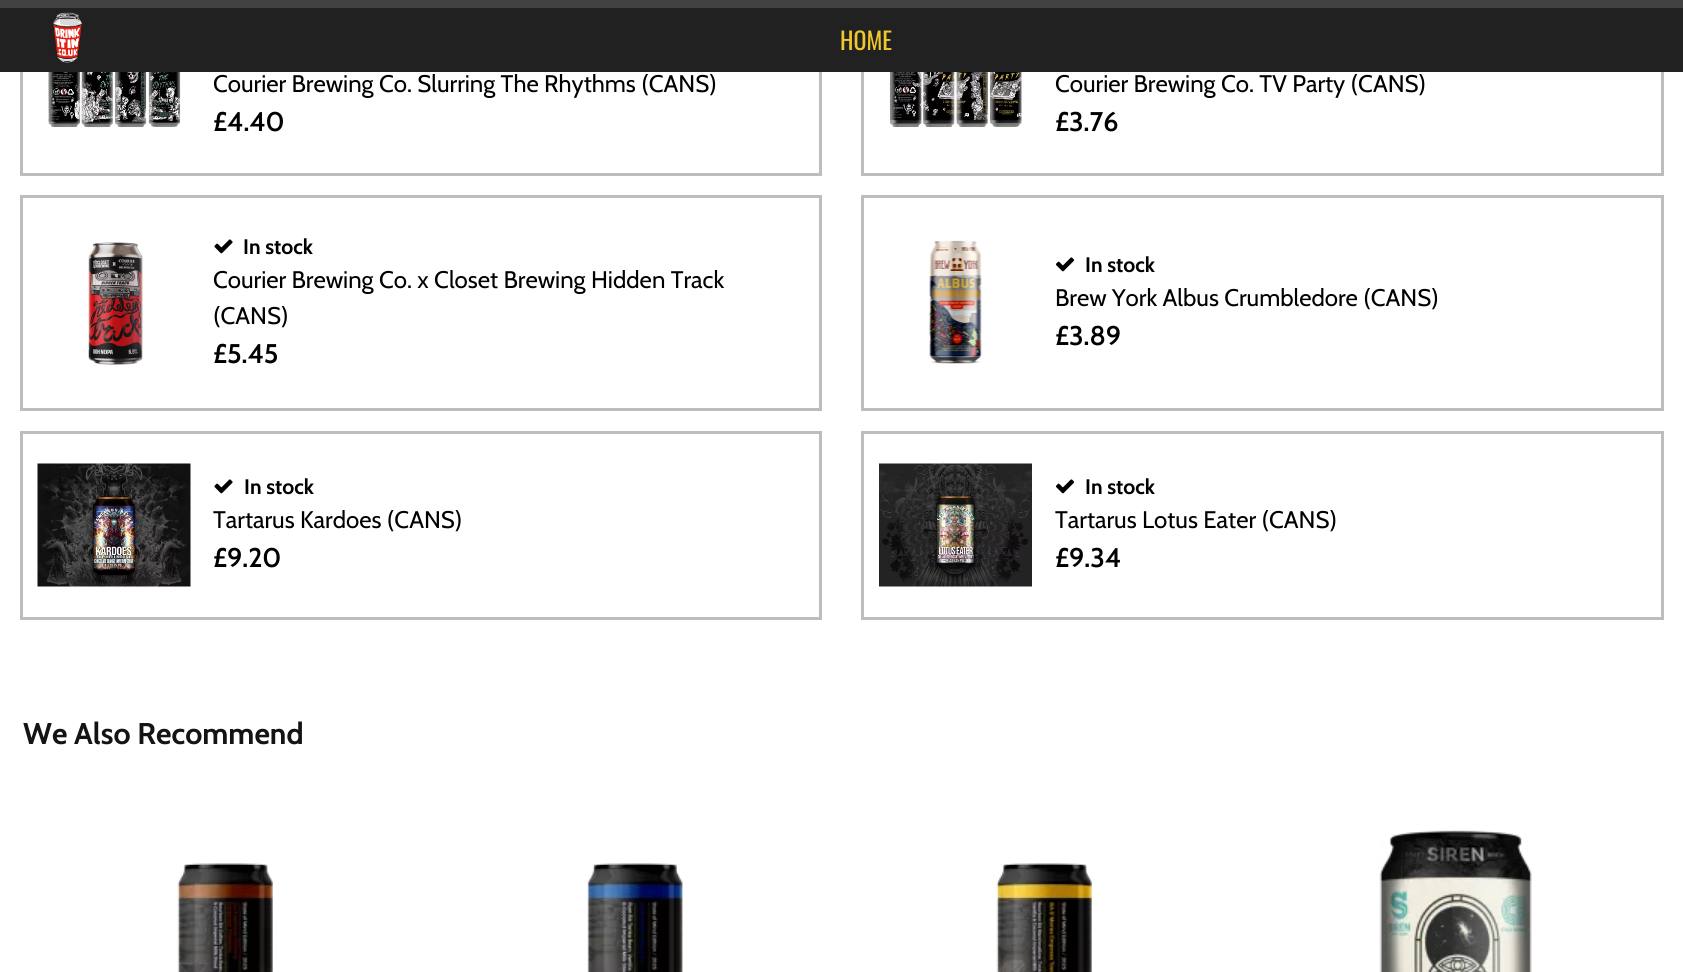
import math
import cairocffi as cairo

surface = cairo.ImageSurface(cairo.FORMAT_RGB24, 1683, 972)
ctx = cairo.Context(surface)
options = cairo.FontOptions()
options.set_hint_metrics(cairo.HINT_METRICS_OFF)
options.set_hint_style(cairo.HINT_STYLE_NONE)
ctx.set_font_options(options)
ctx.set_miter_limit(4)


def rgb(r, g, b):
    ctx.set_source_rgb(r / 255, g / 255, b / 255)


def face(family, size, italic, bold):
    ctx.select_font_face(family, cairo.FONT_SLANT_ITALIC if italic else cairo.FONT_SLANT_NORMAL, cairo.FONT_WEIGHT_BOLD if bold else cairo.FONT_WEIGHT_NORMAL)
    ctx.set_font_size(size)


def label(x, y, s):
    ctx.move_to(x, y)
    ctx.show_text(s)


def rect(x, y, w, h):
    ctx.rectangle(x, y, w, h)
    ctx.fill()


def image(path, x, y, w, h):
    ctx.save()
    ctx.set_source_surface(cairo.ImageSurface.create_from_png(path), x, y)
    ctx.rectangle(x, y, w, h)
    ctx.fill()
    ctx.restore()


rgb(255, 255, 255)
ctx.paint()
ctx.rectangle(21.5, 3.5, 799, 171)
rgb(189, 189, 189)
ctx.set_line_width(3)
ctx.stroke()
ctx.rectangle(862.5, 3.5, 800, 171)
ctx.stroke()
rgb(66, 66, 66)
rect(0, 0, 1683, 8)
rgb(33, 33, 33)
rect(0, 8, 1683, 64)
image('image0.png', 53, 12, 29, 51)
face('Oswald', 24, 0, 0)
rgb(239, 200, 45)
label(840, 50, 'HOME')
image('image1.png', 48, 72, 133, 56)
face('Cabin', 24, 0, 0)
rgb(0, 0, 0)
label(213, 92, 'Courier Brewing Co. Slurring The Rhythms (CANS)')
face('Cabin SemiBold', 27, 0, 0)
label(213, 131, '£4.40')
image('image2.png', 889, 72, 133, 56)
face('Cabin', 24, 0, 0)
label(1055, 92, 'Courier Brewing Co. TV Party (CANS)')
face('Cabin SemiBold', 27, 0, 0)
label(1055, 131, '£3.76')
ctx.rectangle(21.5, 196.5, 799, 213)
rgb(189, 189, 189)
ctx.stroke()
image('image3.png', 88, 242, 55, 123)
image('image4.png', 214, 239, 19, 15)
face('Cabin', 21, 0, 1)
rgb(0, 0, 0)
label(243, 254, 'In stock')
face('Cabin', 24, 0, 0)
label(213, 288, 'Courier Brewing Co. x Closet Brewing Hidden Track')
label(213, 324, '(CANS)')
face('Cabin SemiBold', 27, 0, 0)
label(213, 363, '£5.45')
ctx.rectangle(862.5, 196.5, 800, 213)
rgb(189, 189, 189)
ctx.stroke()
image('image5.png', 929, 240, 53, 124)
image('image6.png', 1055, 257, 20, 15)
face('Cabin', 21, 0, 1)
rgb(0, 0, 0)
label(1085, 272, 'In stock')
face('Cabin', 24, 0, 0)
label(1055, 306, 'Brew York Albus Crumbledore (CANS)')
face('Cabin SemiBold', 27, 0, 0)
label(1055, 345, '£3.89')
ctx.rectangle(21.5, 432.5, 799, 186)
rgb(189, 189, 189)
ctx.stroke()
image('image7.png', 37, 463, 154, 124)
image('image4.png', 214, 479, 19, 15)
face('Cabin', 21, 0, 1)
rgb(0, 0, 0)
label(244, 494, 'In stock')
face('Cabin', 24, 0, 0)
label(213, 528, 'Tartarus Kardoes (CANS)')
face('Cabin SemiBold', 27, 0, 0)
label(213, 567, '£9.20')
ctx.rectangle(862.5, 432.5, 800, 186)
rgb(189, 189, 189)
ctx.stroke()
image('image8.png', 879, 463, 153, 124)
image('image6.png', 1055, 479, 20, 15)
face('Cabin', 21, 0, 1)
rgb(0, 0, 0)
label(1085, 494, 'In stock')
face('Cabin', 24, 0, 0)
label(1055, 528, 'Tartarus Lotus Eater (CANS)')
face('Cabin SemiBold', 27, 0, 0)
label(1055, 567, '£9.34')
face('Cabin', 30, 0, 1)
rgb(20, 20, 18)
label(23, 744, 'We Also Recommend')
image('image9.png', 177, 863, 96, 109)
image('image10.png', 587, 863, 96, 109)
image('image11.png', 996, 863, 96, 109)
image('image12.png', 1379, 830, 153, 142)
surface.write_to_png('render.png')
